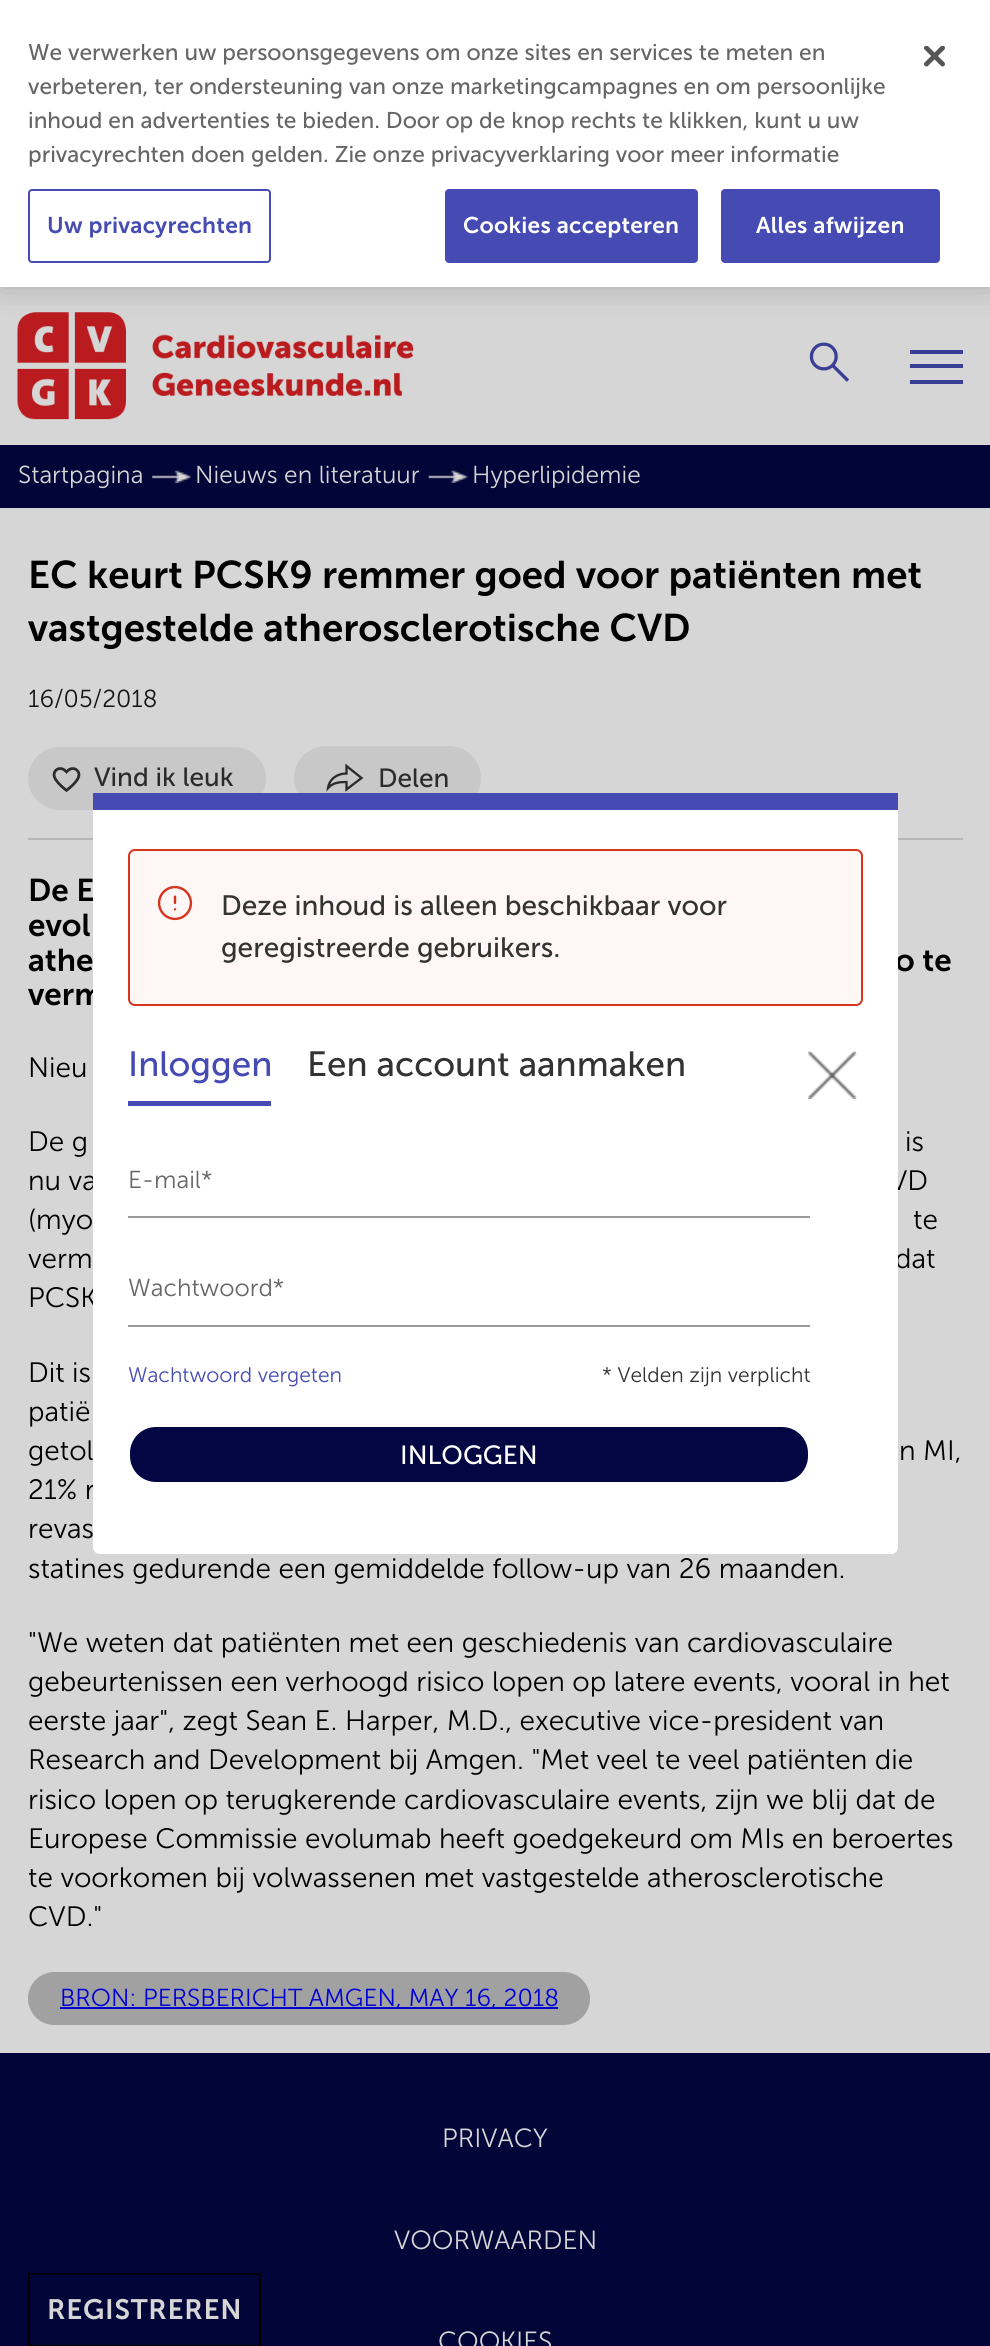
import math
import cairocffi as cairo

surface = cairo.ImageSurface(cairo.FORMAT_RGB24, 990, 2346)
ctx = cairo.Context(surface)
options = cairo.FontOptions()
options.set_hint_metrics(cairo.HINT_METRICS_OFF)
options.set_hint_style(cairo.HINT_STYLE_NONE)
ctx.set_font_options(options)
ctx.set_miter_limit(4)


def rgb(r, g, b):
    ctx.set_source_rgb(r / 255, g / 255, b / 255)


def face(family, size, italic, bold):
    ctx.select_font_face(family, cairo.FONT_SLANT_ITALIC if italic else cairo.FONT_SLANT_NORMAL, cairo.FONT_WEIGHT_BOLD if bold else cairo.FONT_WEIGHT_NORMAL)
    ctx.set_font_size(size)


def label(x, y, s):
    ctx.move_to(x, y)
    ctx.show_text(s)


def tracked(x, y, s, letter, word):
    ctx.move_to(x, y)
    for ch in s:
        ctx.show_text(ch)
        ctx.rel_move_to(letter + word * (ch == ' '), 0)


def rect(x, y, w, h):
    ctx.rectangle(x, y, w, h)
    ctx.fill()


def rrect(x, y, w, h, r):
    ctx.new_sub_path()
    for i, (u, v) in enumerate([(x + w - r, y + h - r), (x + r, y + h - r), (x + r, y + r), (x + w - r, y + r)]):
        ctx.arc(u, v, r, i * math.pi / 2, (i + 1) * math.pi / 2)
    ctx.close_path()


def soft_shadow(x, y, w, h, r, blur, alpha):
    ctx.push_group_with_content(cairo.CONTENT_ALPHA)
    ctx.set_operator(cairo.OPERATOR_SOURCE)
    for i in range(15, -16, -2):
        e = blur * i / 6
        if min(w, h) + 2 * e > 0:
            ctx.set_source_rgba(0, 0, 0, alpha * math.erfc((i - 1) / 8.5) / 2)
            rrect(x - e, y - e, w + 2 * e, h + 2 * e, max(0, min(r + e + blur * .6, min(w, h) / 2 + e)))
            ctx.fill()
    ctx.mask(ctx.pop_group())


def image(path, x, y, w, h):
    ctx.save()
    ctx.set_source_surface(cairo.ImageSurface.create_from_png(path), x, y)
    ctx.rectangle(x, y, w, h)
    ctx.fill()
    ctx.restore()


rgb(214, 214, 214)
ctx.paint()
image('image1.png', 17, 312, 397, 108)
rgb(0, 0, 0)
soft_shadow(0, 0, 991, 287, 0, 16, 0.2)
rgb(255, 255, 255)
rect(0, 0, 990, 287)
face('Museo Sans', 22.75, 0, 0)
rgb(102, 102, 102)
label(28, 60, 'We verwerken uw persoonsgegevens om onze sites en services te meten en')
label(28, 94, 'verbeteren, ter ondersteuning van onze marketingcampagnes en om persoonlijke')
label(28, 128, 'inhoud en advertenties te bieden. Door op de knop rechts te klikken, kunt u uw')
label(28, 162, 'privacyrechten doen gelden. Zie onze privacyverklaring voor meer informatie')
rrect(29, 190, 241, 72, 3)
rgb(69, 75, 178)
ctx.stroke()
face('Museo Sans SemiBold', 22.75, 0, 0)
tracked(47, 233, 'Uw privacyrechten', 0.25, 0)
rrect(446, 190, 251, 72, 3)
ctx.fill_preserve()
ctx.stroke()
rgb(255, 255, 255)
tracked(463, 233, 'Cookies accepteren', 0.25, 0)
rgb(69, 75, 178)
rrect(722, 190, 217, 72, 3)
ctx.fill_preserve()
ctx.stroke()
rgb(255, 255, 255)
tracked(756, 233, 'Alles afwijzen', 0.25, 0)
image('image0.png', 924, 46, 21, 21)
image('image2.png', 809, 342, 41, 40)
rgb(58, 63, 150)
rect(910, 350, 53, 4)
rect(910, 364, 53, 4)
rect(910, 380, 53, 4)
rgb(2, 5, 56)
rect(0, 445, 990, 63)
face('Museo Sans Light', 24.5, 0, 0)
rgb(214, 214, 214)
label(18, 483, 'Startpagina')
image('image3.png', 152, 470, 39, 13)
label(195, 483, 'Nieuws en literatuur')
image('image4.png', 428, 470, 40, 13)
label(472, 483, 'Hyperlipidemie')
face('Museo Sans SemiBold', 38.5, 0, 0)
rgb(0, 0, 0)
label(28, 588, 'EC keurt PCSK9 remmer goed voor patiënten met')
label(28, 641, 'vastgestelde atherosclerotische CVD')
rgb(182, 183, 185)
rect(28, 838, 935, 2)
face('Museo Sans Light', 24.5, 0, 0)
rgb(22, 22, 22)
label(28, 707, '16/05/2018')
rgb(200, 200, 200)
rrect(28, 747, 238, 63, 31.5)
ctx.fill()
image('image5.png', 52, 767, 29, 25)
face('Museo Sans', 26.25, 0, 0)
rgb(43, 43, 43)
label(94, 786, 'Vind ik leuk')
rgb(200, 200, 200)
rrect(294, 746, 187, 64, 32)
ctx.fill()
ctx.new_path()
ctx.move_to(346.5, 783)
ctx.line_to(346.5, 782)
ctx.curve_to(339.5, 782, 333, 782.5, 328, 788)
ctx.curve_to(329.5, 778.5, 337.5, 773.5, 346.5, 773.5)
ctx.line_to(346.5, 766)
ctx.line_to(361.5, 778)
ctx.line_to(346.5, 789.5)
ctx.close_path()
rgb(43, 43, 43)
ctx.set_line_width(2.3)
ctx.stroke()
label(378, 787, 'Delen')
face('Museo Sans SemiBold', 31.5, 0, 0)
rgb(0, 0, 0)
label(28, 901, 'De E')
label(28, 936, 'evol')
label(28, 971, 'athe')
label(895, 971, 'o te')
label(28, 1005, 'verm')
face('Museo Sans Light', 28, 0, 0)
label(28, 1077, 'Nieu')
label(28, 1151, 'De g')
label(905, 1151, 'is')
label(28, 1190, 'nu va')
label(890, 1190, 'VD')
label(28, 1229, '(myo')
label(913, 1229, 'te')
label(28, 1268, 'verm')
label(895, 1268, 'dat')
label(28, 1307, 'PCSK')
label(28, 1382, 'Dit is')
label(28, 1421, 'patië')
label(28, 1460, 'getol')
label(899, 1460, 'n MI,')
label(28, 1499, '21% r')
label(28, 1538, 'revas')
label(28, 1578, 'statines gedurende een gemiddelde follow-up van 26 maanden.')
label(28, 1652, '"We weten dat patiënten met een geschiedenis van cardiovasculaire')
label(28, 1691, 'gebeurtenissen een verhoogd risico lopen op latere events, vooral in het')
label(28, 1730, 'eerste jaar", zegt Sean E. Harper, M.D., executive vice-president van')
label(28, 1769, 'Research and Development bij Amgen. "Met veel te veel patiënten die')
label(28, 1809, 'risico lopen op terugkerende cardiovasculaire events, zijn we blij dat de')
label(28, 1848, 'Europese Commissie evolumab heeft goedgekeurd om MIs en beroertes')
label(28, 1887, 'te voorkomen bij volwassenen met vastgestelde atherosclerotische')
label(28, 1926, 'CVD."')
rgb(161, 161, 161)
rrect(28, 1972, 562, 53, 26.5)
ctx.fill()
rgb(0, 0, 214)
rect(60, 2007, 498, 2)
face('Museo Sans Light', 24.5, 0, 0)
label(60, 2006, 'BRON: PERSBERICHT AMGEN, MAY 16, 2018')
rgb(2, 5, 56)
rect(0, 2053, 990, 293)
face('Museo Sans Light', 26.25, 0, 0)
rgb(214, 214, 214)
label(442, 2147, 'PRIVACY')
label(394, 2249, 'VOORWAARDEN')
label(438, 2350, 'COOKIES')
rgb(255, 255, 255)
ctx.new_path()
ctx.move_to(93, 793)
ctx.line_to(898, 793)
ctx.line_to(898, 1547)
ctx.curve_to(898, 1551, 895, 1554, 891, 1554)
ctx.line_to(100, 1554)
ctx.curve_to(96, 1554, 93, 1551, 93, 1547)
ctx.close_path()
ctx.fill()
rgb(69, 75, 178)
rect(93, 793, 805, 17)
rgb(255, 247, 245)
rrect(129, 850, 733, 155, 6)
ctx.fill_preserve()
rgb(213, 53, 31)
ctx.set_line_width(2)
ctx.stroke()
image('image6.png', 158, 886, 35, 35)
face('Museo Sans', 28, 0, 0)
rgb(51, 51, 51)
label(221, 915, 'Deze inhoud is alleen beschikbaar voor')
label(221, 957, 'geregistreerde gebruikers.')
rgb(69, 75, 178)
rect(128, 1101, 143, 5)
face('Museo Sans', 35, 0, 0)
label(128, 1076, 'Inloggen')
rgb(51, 51, 51)
label(307, 1076, 'Een account aanmaken')
rgb(153, 153, 153)
rect(128, 1216, 682, 2)
face('Museo Sans Light', 24.5, 0, 0)
rgb(102, 102, 102)
label(128, 1188, 'E-mail*')
rgb(153, 153, 153)
rect(128, 1325, 682, 2)
rgb(102, 102, 102)
label(128, 1296, 'Wachtwoord*')
face('Museo Sans Light', 21, 0, 0)
rgb(69, 75, 178)
label(128, 1382, 'Wachtwoord vergeten')
rgb(51, 51, 51)
label(602, 1382, '* Velden zijn verplicht')
rgb(2, 6, 67)
rrect(129, 1426, 680, 57, 27)
ctx.fill_preserve()
rgb(255, 255, 255)
ctx.stroke()
face('Museo Sans', 26.25, 0, 0)
label(400, 1464, 'INLOGGEN')
image('image7.png', 808, 1051, 49, 48)
ctx.rectangle(29, 2274, 231, 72)
rgb(0, 0, 0)
ctx.stroke()
face('Museo Sans SemiBold', 28, 0, 0)
rgb(214, 214, 214)
tracked(47, 2319, 'REGISTREREN', 0.75, 0)
surface.write_to_png('render.png')
